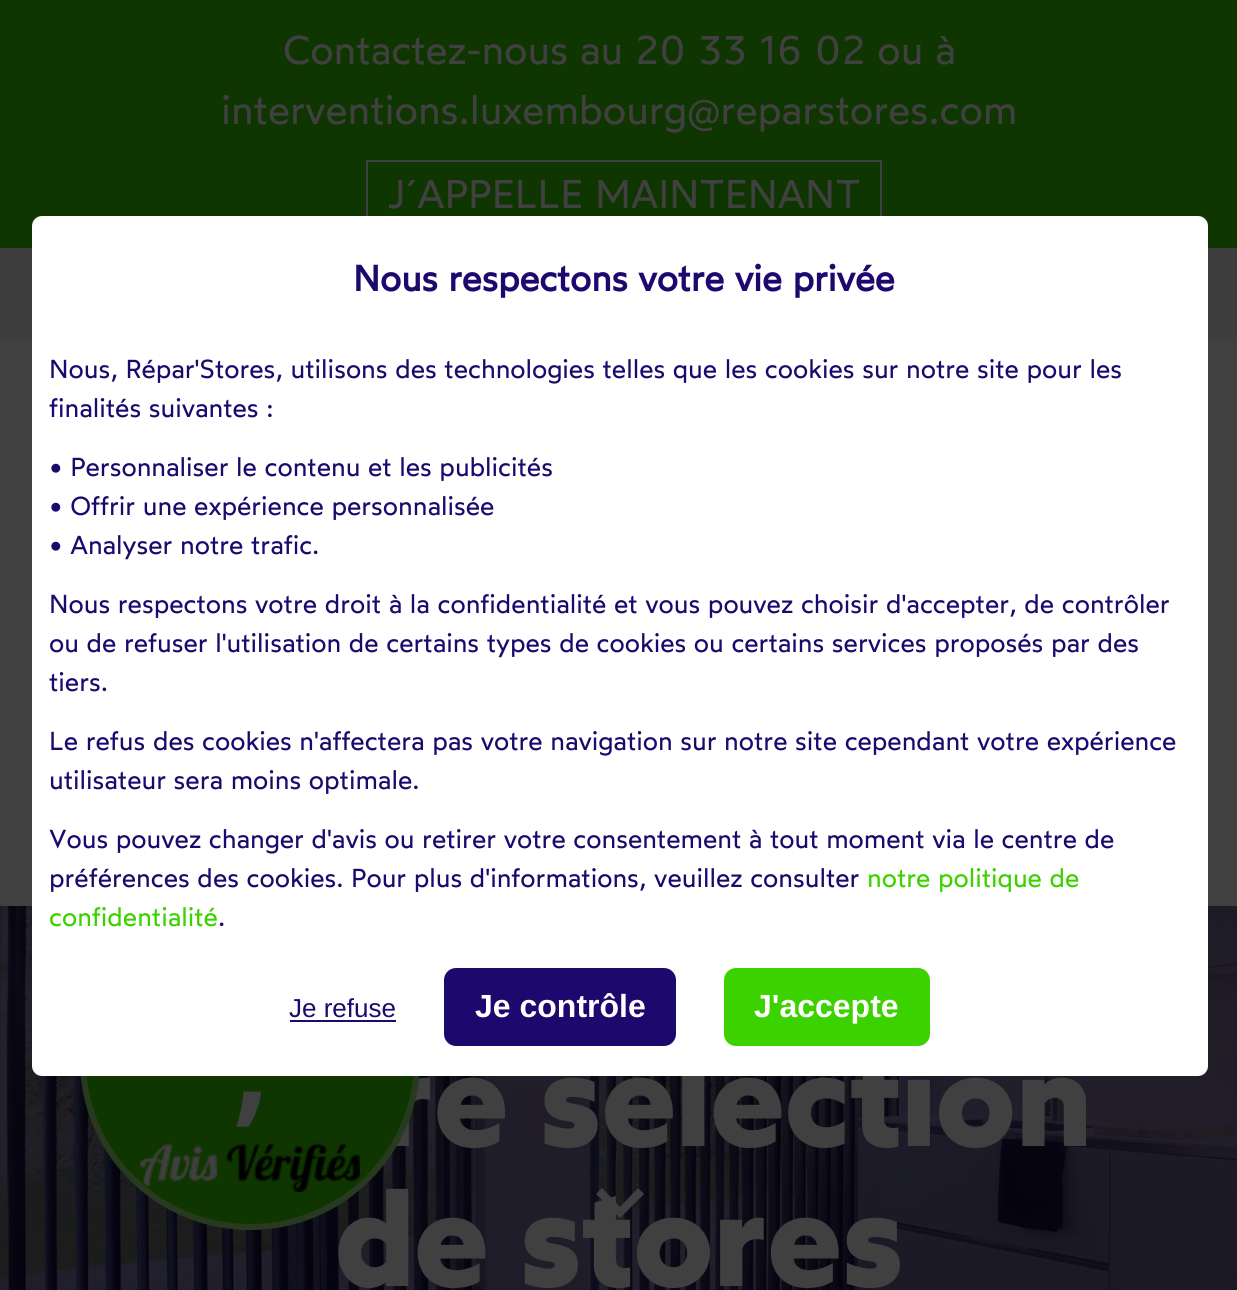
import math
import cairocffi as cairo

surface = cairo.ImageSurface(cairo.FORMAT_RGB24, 1237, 1290)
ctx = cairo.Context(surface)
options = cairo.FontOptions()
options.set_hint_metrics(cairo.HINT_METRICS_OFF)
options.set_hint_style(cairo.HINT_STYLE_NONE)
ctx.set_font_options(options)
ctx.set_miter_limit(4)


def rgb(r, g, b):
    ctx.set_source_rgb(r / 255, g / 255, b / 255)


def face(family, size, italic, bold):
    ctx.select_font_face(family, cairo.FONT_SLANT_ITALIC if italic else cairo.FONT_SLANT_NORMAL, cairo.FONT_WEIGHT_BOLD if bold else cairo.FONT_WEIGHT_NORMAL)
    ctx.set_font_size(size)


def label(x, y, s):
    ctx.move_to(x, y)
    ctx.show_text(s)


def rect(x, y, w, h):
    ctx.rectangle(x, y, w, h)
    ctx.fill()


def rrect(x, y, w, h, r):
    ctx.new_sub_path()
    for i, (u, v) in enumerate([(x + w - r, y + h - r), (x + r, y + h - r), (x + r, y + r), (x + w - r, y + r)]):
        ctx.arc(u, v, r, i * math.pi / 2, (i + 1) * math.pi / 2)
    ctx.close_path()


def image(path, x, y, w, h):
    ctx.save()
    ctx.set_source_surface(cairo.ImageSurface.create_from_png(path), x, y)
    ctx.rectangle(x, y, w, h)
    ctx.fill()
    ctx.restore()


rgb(255, 255, 255)
ctx.paint()
image('image0.png', 0, 906, 1237, 384)
face('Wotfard', 134, 0, 1)
rgb(64, 64, 64)
label(380, 1146, 're sélection')
label(335, 1286, 'de stores')
rgb(15, 53, 0)
ctx.new_path()
ctx.arc(250, 1060, 170, 0, 2 * math.pi)
ctx.fill()
ctx.arc(250, 1060, 167, 0, 2 * math.pi)
ctx.set_source_rgba(0.251, 0.251, 0.251, 0.5)
ctx.set_line_width(6)
ctx.stroke()
rgb(64, 64, 64)
rect(0, 340, 1237, 566)
rgb(15, 53, 0)
rect(0, 0, 1237, 248)
face('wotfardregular', 40, 0, 0)
rgb(64, 64, 64)
label(283, 64, 'Contactez-nous au 20 33 16 02 ou à')
label(221, 124, 'interventions.luxembourg@reparstores.com')
ctx.rectangle(367, 161, 514, 66)
ctx.set_line_width(2)
ctx.stroke()
label(387, 208, 'J´APPELLE MAINTENANT')
rgb(62, 62, 62)
rect(0, 248, 1237, 92)
rgb(255, 255, 255)
rrect(32, 216, 1176, 860, 10)
ctx.fill()
face('wotfardregular', 36, 0, 1)
rgb(29, 9, 110)
label(353, 291, 'Nous respectons votre vie privée')
face('wotfardregular', 26, 0, 0)
label(49, 378, 'Nous, Répar\'Stores, utilisons des technologies telles que les cookies sur notre site pour les')
label(49, 417, 'finalités suivantes :')
label(49, 476, '• Personnaliser le contenu et les publicités')
label(49, 515, '• Offrir une expérience personnalisée')
label(49, 554, '• Analyser notre trafic.')
label(49, 613, 'Nous respectons votre droit à la confidentialité et vous pouvez choisir d\'accepter, de contrôler')
label(49, 652, 'ou de refuser l\'utilisation de certains types de cookies ou certains services proposés par des')
label(49, 691, 'tiers.')
label(49, 750, 'Le refus des cookies n\'affectera pas votre navigation sur notre site cependant votre expérience')
label(49, 789, 'utilisateur sera moins optimale.')
label(49, 848, 'Vous pouvez changer d\'avis ou retirer votre consentement à tout moment via le centre de')
label(49, 887, 'préférences des cookies. Pour plus d\'informations, veuillez consulter')
rgb(60, 210, 0)
label(867, 887, 'notre politique de')
label(49, 926, 'confidentialité')
rgb(29, 9, 110)
label(218, 926, '.')
face('Liberation Sans', 26, 0, 0)
label(289, 1017, 'Je refuse')
rect(290, 1020, 106, 2)
rrect(444, 968, 232, 78, 12)
ctx.fill()
face('Liberation Sans', 32, 0, 1)
rgb(255, 255, 255)
label(475, 1017, 'Je contrôle')
rgb(60, 210, 0)
rrect(724, 968, 206, 78, 12)
ctx.fill()
rgb(255, 255, 255)
label(754, 1017, 'J\'accepte')
face('Wotfard SemiBold', 120, 0, 0)
rgb(64, 64, 64)
label(231, 1107, ',')
image('image1.png', 140, 1143, 220, 49)
ctx.new_path()
ctx.move_to(602, 1188)
ctx.line_to(620, 1207)
ctx.line_to(638, 1188)
ctx.line_to(644, 1194)
ctx.line_to(620, 1218)
ctx.line_to(596, 1194)
ctx.close_path()
ctx.fill()
surface.write_to_png('render.png')
